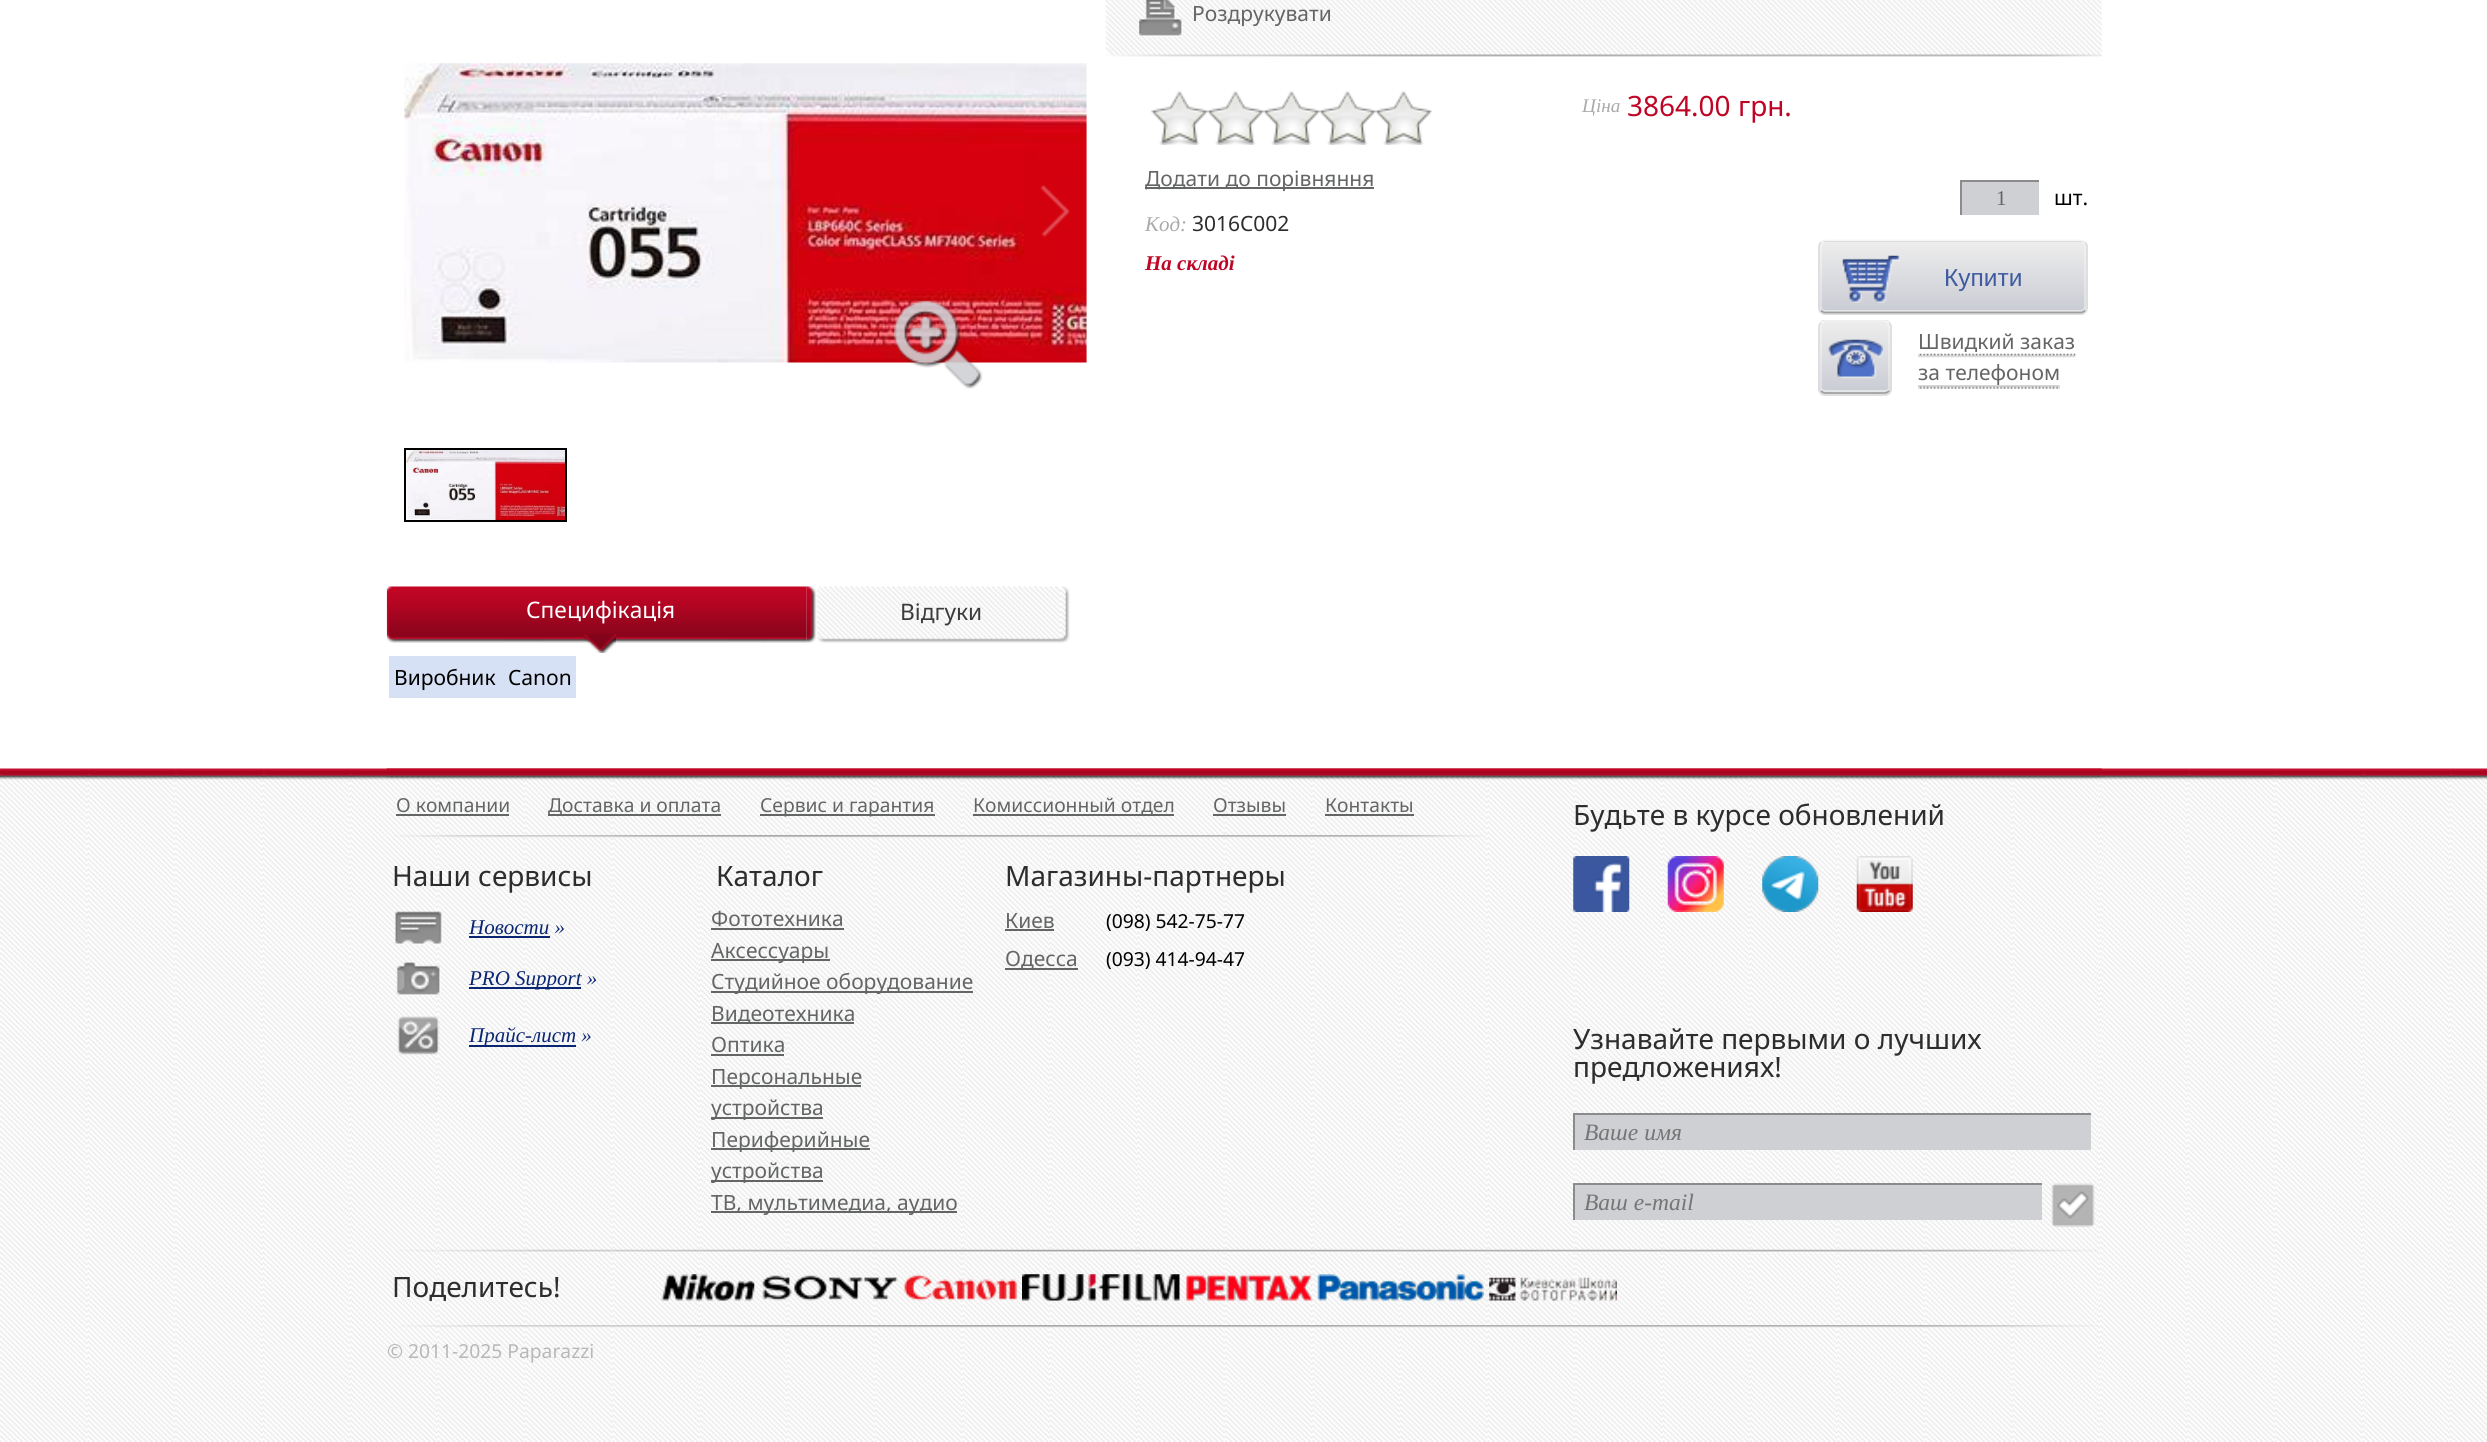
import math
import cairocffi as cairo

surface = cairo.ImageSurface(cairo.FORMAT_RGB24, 2487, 1442)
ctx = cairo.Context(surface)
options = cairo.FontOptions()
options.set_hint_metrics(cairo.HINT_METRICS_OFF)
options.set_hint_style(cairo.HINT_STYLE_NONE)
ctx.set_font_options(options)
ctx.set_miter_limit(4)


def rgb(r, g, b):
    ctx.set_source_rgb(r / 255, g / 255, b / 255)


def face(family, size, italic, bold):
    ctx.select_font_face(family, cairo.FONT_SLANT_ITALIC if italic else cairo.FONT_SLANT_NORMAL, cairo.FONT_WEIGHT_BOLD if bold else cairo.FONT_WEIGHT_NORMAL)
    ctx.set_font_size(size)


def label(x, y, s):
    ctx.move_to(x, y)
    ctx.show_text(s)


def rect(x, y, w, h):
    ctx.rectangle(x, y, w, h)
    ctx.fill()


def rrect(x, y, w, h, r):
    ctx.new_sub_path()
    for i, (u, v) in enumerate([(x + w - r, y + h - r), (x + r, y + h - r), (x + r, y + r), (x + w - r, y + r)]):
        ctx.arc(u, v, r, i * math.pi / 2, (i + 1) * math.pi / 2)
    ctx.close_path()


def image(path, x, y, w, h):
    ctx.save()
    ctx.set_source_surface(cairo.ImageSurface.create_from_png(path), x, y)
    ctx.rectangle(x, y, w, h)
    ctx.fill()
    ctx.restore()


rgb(255, 255, 255)
ctx.paint()
image('image0.png', 404, 63, 683, 300)
image('image1.png', 1040, 185, 30, 52)
rgb(0, 0, 0)
rect(404, 448, 163, 74)
image('image2.png', 406, 450, 160, 70)
image('image3.png', 894, 300, 89, 89)
image('image4.png', 1105, 0, 997, 57)
image('image5.png', 1139, 0, 44, 37)
face('Noto Sans', 21, 0, 0)
rgb(100, 101, 101)
label(1192, 21, 'Роздрукувати')
face('Liberation Serif', 19.25, 1, 0)
rgb(171, 170, 170)
label(1582, 112, 'Цiна')
face('Noto Sans', 28, 0, 0)
rgb(191, 5, 37)
label(1627, 116, '3864.00 грн.')
image('image6.png', 1151, 91, 281, 54)
rgb(100, 101, 101)
rect(1145, 187, 229, 2)
face('Noto Sans', 21, 0, 0)
label(1145, 186, 'Додати до порівняння')
face('Liberation Serif', 21, 1, 0)
rgb(171, 170, 170)
label(1145, 231, 'Код:')
face('Noto Sans', 21, 0, 0)
rgb(45, 45, 45)
label(1192, 231, '3016C002')
face('Liberation Serif', 21, 1, 1)
rgb(191, 5, 37)
label(1145, 270, 'На складі')
rgb(207, 208, 211)
rect(1962, 182, 77, 33)
rgb(139, 139, 141)
rect(1960, 180, 79, 2)
rect(1960, 180, 2, 35)
face('Liberation Serif', 21, 0, 0)
rgb(100, 101, 101)
label(1996, 205, '1')
face('Noto Sans', 21, 0, 0)
rgb(0, 0, 0)
label(2054, 205, 'шт.')
rgb(223, 223, 223)
ctx.new_path()
ctx.move_to(1818, 247)
ctx.line_to(1818, 308)
ctx.curve_to(1818, 312, 1821, 315, 1825, 315)
ctx.line_to(2081, 315)
ctx.curve_to(2085, 315, 2088, 312, 2088, 308)
ctx.line_to(2088, 247)
ctx.line_to(2088, 306)
ctx.curve_to(2088, 310, 2085, 313, 2081, 313)
ctx.line_to(1825, 313)
ctx.curve_to(1821, 313, 1818, 310, 1818, 306)
ctx.close_path()
ctx.fill()
ctx.save()
rrect(1818, 240, 270, 73, 7)
ctx.clip()
gradient = cairo.LinearGradient(1953, 242, 1953, 312)
gradient.add_color_stop_rgba(0, 0.929, 0.929, 0.929, 1)
gradient.add_color_stop_rgba(1, 0.792, 0.8, 0.831, 1)
ctx.set_source(gradient)
rect(1818, 242, 270, 70)
ctx.restore()
image('image7.png', 1842, 255, 58, 48)
ctx.save()
rrect(1818, 240, 270, 73, 7)
ctx.clip()
gradient = cairo.LinearGradient(1953, 171, 1953, 242)
gradient.add_color_stop_rgba(0, 0.929, 0.929, 0.929, 1)
gradient.add_color_stop_rgba(1, 0.792, 0.8, 0.831, 1)
ctx.set_source(gradient)
rect(1818, 240, 270, 2)
ctx.restore()
ctx.set_source_rgba(0.98, 0.98, 0.98, 0.4)
ctx.new_path()
ctx.move_to(2079, 312)
ctx.curve_to(2088, 312, 2086, 305, 2086, 297)
ctx.line_to(2086, 257)
ctx.curve_to(2086, 249, 2088, 242, 2079, 242)
ctx.curve_to(2082, 242, 2084, 244, 2084, 247)
ctx.line_to(2084, 306)
ctx.curve_to(2084, 309, 2082, 312, 2079, 312)
ctx.close_path()
ctx.fill()
ctx.new_path()
ctx.move_to(1825, 242)
ctx.curve_to(1822, 242, 1820, 244, 1820, 247)
ctx.line_to(1820, 307)
ctx.curve_to(1820, 310, 1822, 312, 1825, 312)
ctx.line_to(1827, 312)
ctx.curve_to(1824, 312, 1822, 309, 1822, 306)
ctx.line_to(1822, 247)
ctx.curve_to(1822, 244, 1824, 242, 1827, 242)
ctx.close_path()
ctx.fill()
rgb(228, 229, 233)
ctx.new_path()
ctx.move_to(1820, 304)
ctx.line_to(1820, 307)
ctx.curve_to(1820, 310, 1822, 312, 1825, 312)
ctx.line_to(2081, 312)
ctx.curve_to(2084, 312, 2086, 310, 2086, 307)
ctx.line_to(2086, 304)
ctx.curve_to(2086, 307, 2084, 310, 2081, 310)
ctx.line_to(1825, 310)
ctx.curve_to(1822, 310, 1820, 307, 1820, 304)
ctx.close_path()
ctx.fill()
ctx.new_path()
ctx.move_to(1821, 242.5)
ctx.curve_to(1822, 241.5, 1823.5, 240.5, 1825, 240.5)
ctx.line_to(2081, 240.5)
ctx.curve_to(2082.5, 240.5, 2084, 241.5, 2085, 242.5)
rgb(246, 246, 246)
ctx.set_line_width(1.8)
ctx.stroke()
ctx.new_path()
ctx.move_to(2085, 242.5)
ctx.curve_to(2086, 243.5, 2087, 245, 2087, 247)
ctx.line_to(2087, 306)
ctx.curve_to(2087, 308, 2086, 309.5, 2085, 310.5)
rgb(223, 223, 223)
ctx.stroke()
ctx.new_path()
ctx.move_to(2085, 310.5)
ctx.curve_to(2084, 311.5, 2082.5, 312.5, 2081, 312.5)
ctx.line_to(1825, 312.5)
ctx.curve_to(1823.5, 312.5, 1822, 311.5, 1821, 310.5)
rgb(159, 159, 159)
ctx.stroke()
ctx.new_path()
ctx.move_to(1821, 310.5)
ctx.curve_to(1820, 309.5, 1819, 308, 1819, 306)
ctx.line_to(1819, 247)
ctx.curve_to(1819, 245, 1820, 243.5, 1821, 242.5)
rgb(223, 223, 223)
ctx.stroke()
face('Liberation Sans', 24.5, 0, 0)
rgb(63, 90, 158)
label(1944, 286, 'Купити')
rgb(223, 223, 223)
ctx.new_path()
ctx.move_to(1818, 327)
ctx.line_to(1818, 389)
ctx.curve_to(1818, 393, 1821, 396, 1825, 396)
ctx.line_to(1885, 396)
ctx.curve_to(1889, 396, 1892, 393, 1892, 389)
ctx.line_to(1892, 327)
ctx.line_to(1892, 377)
ctx.curve_to(1892, 394, 1892, 394, 1875, 394)
ctx.line_to(1835, 394)
ctx.curve_to(1818, 394, 1818, 394, 1818, 377)
ctx.close_path()
ctx.fill()
ctx.save()
rrect(1818, 320, 74, 74, 7)
ctx.clip()
gradient = cairo.LinearGradient(1855, 252, 1855, 322)
gradient.add_color_stop_rgba(0, 0.929, 0.929, 0.929, 1)
gradient.add_color_stop_rgba(1, 0.792, 0.8, 0.831, 1)
ctx.set_source(gradient)
rect(1818, 320, 74, 2)
gradient = cairo.LinearGradient(1855, 322, 1855, 392)
gradient.add_color_stop_rgba(0, 0.929, 0.929, 0.929, 1)
gradient.add_color_stop_rgba(1, 0.792, 0.8, 0.831, 1)
ctx.set_source(gradient)
rect(1818, 322, 74, 70)
gradient = cairo.LinearGradient(1855, 392, 1855, 462)
gradient.add_color_stop_rgba(0, 0.929, 0.929, 0.929, 1)
gradient.add_color_stop_rgba(1, 0.792, 0.8, 0.831, 1)
ctx.set_source(gradient)
rect(1818, 392, 74, 2)
ctx.restore()
ctx.set_source_rgba(0.98, 0.98, 0.98, 0.4)
ctx.new_path()
ctx.move_to(1883, 392)
ctx.curve_to(1892, 392, 1890, 385, 1890, 377)
ctx.line_to(1890, 337)
ctx.curve_to(1890, 329, 1892, 322, 1883, 322)
ctx.curve_to(1886, 322, 1888, 324, 1888, 327)
ctx.line_to(1888, 387)
ctx.curve_to(1888, 390, 1886, 392, 1883, 392)
ctx.close_path()
ctx.fill()
ctx.new_path()
ctx.move_to(1825, 322)
ctx.curve_to(1822, 322, 1820, 324, 1820, 327)
ctx.line_to(1820, 387)
ctx.curve_to(1820, 390, 1822, 392, 1825, 392)
ctx.line_to(1827, 392)
ctx.curve_to(1824, 392, 1822, 390, 1822, 387)
ctx.line_to(1822, 327)
ctx.curve_to(1822, 324, 1824, 322, 1827, 322)
ctx.close_path()
ctx.fill()
rgb(228, 229, 233)
ctx.new_path()
ctx.move_to(1820, 385)
ctx.curve_to(1820, 394, 1827, 392, 1835, 392)
ctx.line_to(1875, 392)
ctx.curve_to(1883, 392, 1890, 394, 1890, 385)
ctx.curve_to(1890, 388, 1888, 390, 1885, 390)
ctx.line_to(1825, 390)
ctx.curve_to(1822, 390, 1820, 388, 1820, 385)
ctx.close_path()
ctx.fill()
ctx.new_path()
ctx.move_to(1821, 323)
ctx.curve_to(1822, 322, 1823.5, 321, 1825, 321)
ctx.line_to(1885, 321)
ctx.curve_to(1886.5, 321, 1888, 322, 1889, 323)
rgb(246, 246, 246)
ctx.stroke()
ctx.new_path()
ctx.move_to(1889, 323)
ctx.curve_to(1890, 324, 1891, 325.5, 1891, 327)
ctx.line_to(1891, 387)
ctx.curve_to(1891, 388.5, 1890, 390, 1889, 391)
rgb(223, 223, 223)
ctx.stroke()
ctx.new_path()
ctx.move_to(1889, 391)
ctx.curve_to(1888, 392, 1886.5, 393, 1885, 393)
ctx.line_to(1825, 393)
ctx.curve_to(1823.5, 393, 1822, 392, 1821, 391)
rgb(159, 159, 159)
ctx.stroke()
ctx.new_path()
ctx.move_to(1821, 391)
ctx.curve_to(1820, 390, 1819, 388.5, 1819, 387)
ctx.line_to(1819, 327)
ctx.curve_to(1819, 325.5, 1820, 324, 1821, 323)
rgb(223, 223, 223)
ctx.stroke()
image('image8.png', 1918, 353, 158, 5)
face('Noto Sans', 21, 0, 0)
rgb(100, 101, 101)
label(1918, 349, 'Швидкий заказ')
image('image9.png', 1918, 385, 142, 4)
label(1918, 380, 'за телефоном')
image('image10.png', 1828, 339, 55, 40)
image('image11.png', 806, 586, 10, 57)
image('image12.png', 386, 586, 421, 57)
image('image13.png', 584, 633, 32, 20)
face('Noto Sans', 22.75, 0, 0)
rgb(255, 255, 255)
label(526, 618, 'Специфікація')
image('image14.png', 1060, 586, 10, 57)
image('image15.png', 816, 586, 245, 57)
rgb(60, 60, 60)
label(900, 620, 'Відгуки')
rgb(215, 225, 245)
rect(389, 656, 187, 42)
face('Noto Sans', 21, 0, 0)
rgb(0, 0, 0)
label(394, 685, 'Виробник')
label(508, 685, 'Canon')
image('image35.png', 0, 768, 2487, 674)
image('image16.png', 386, 768, 1716, 10)
image('image17.png', 394, 835, 1089, 3)
face('Noto Sans', 19.25, 0, 0)
rgb(100, 101, 101)
label(396, 812, 'О компании')
rect(396, 814, 113, 2)
rect(548, 814, 173, 2)
label(548, 812, 'Доставка и оплата')
rect(760, 814, 175, 2)
label(760, 812, 'Сервис и гарантия')
rect(973, 814, 201, 2)
label(973, 812, 'Комиссионный отдел')
label(1213, 812, 'Отзывы')
rect(1213, 814, 73, 2)
label(1325, 812, 'Контакты')
rect(1325, 814, 89, 2)
face('Noto Sans', 28, 0, 0)
rgb(45, 45, 45)
label(392, 886, 'Наши сервисы')
image('image18.png', 395, 911, 48, 34)
face('Liberation Serif', 21, 1, 0)
rgb(10, 38, 115)
label(469, 934, 'Новости »')
rect(469, 936, 81, 2)
image('image19.png', 396, 962, 45, 34)
rect(469, 987, 112, 2)
label(469, 985, 'PRO Support »')
image('image20.png', 397, 1016, 43, 39)
rect(469, 1045, 107, 2)
label(469, 1042, 'Прайс-лист »')
face('Noto Sans', 28, 0, 0)
rgb(45, 45, 45)
label(716, 886, 'Каталог')
face('Noto Sans', 21, 0, 0)
rgb(100, 101, 101)
label(711, 926, 'Фототехника')
rect(711, 928, 133, 2)
rect(711, 959, 119, 2)
label(711, 958, 'Аксессуары')
rect(711, 991, 262, 2)
label(711, 989, 'Студийное оборудование')
rect(711, 1022, 143, 2)
label(711, 1021, 'Видеотехника')
label(711, 1052, 'Оптика')
rect(711, 1054, 73, 2)
rect(711, 1085, 150, 2)
label(711, 1084, 'Персональные')
rect(711, 1117, 112, 2)
ctx.save()
ctx.rectangle(711, 856, 288, 362)
ctx.clip()
label(711, 1115, 'устройства')
ctx.restore()
rect(711, 1148, 159, 2)
label(711, 1147, 'Периферийные')
rect(711, 1180, 112, 2)
ctx.save()
ctx.rectangle(711, 856, 288, 362)
ctx.clip()
label(711, 1178, 'устройства')
ctx.restore()
rect(711, 1211, 246, 2)
label(711, 1210, 'ТВ, мультимедиа, аудио')
face('Noto Sans', 28, 0, 0)
rgb(45, 45, 45)
label(1005, 886, 'Магазины-партнеры')
face('Noto Sans', 21, 0, 0)
rgb(100, 101, 101)
label(1005, 928, 'Киев')
rect(1005, 929, 49, 2)
face('Noto Sans', 19.25, 0, 0)
rgb(0, 0, 0)
label(1106, 928, '(098) 542-75-77')
rgb(100, 101, 101)
rect(1005, 968, 73, 2)
face('Noto Sans', 21, 0, 0)
label(1005, 966, 'Одесса')
face('Noto Sans', 19.25, 0, 0)
rgb(0, 0, 0)
label(1106, 966, '(093) 414-94-47')
face('Noto Sans', 28, 0, 0)
rgb(45, 45, 45)
label(1573, 825, 'Будьте в курсе обновлений')
image('image21.png', 1573, 856, 57, 56)
image('image22.png', 1667, 856, 57, 56)
image('image23.png', 1762, 856, 57, 56)
image('image24.png', 1856, 856, 57, 56)
label(1573, 1049, 'Узнавайте первыми о лучших')
label(1573, 1077, 'предложениях!')
rgb(207, 208, 211)
rect(1575, 1115, 516, 35)
rgb(139, 139, 141)
rect(1573, 1113, 518, 2)
rect(1573, 1113, 2, 37)
face('Liberation Serif', 23.5, 1, 0)
rgb(117, 117, 117)
label(1584, 1140, 'Ваше имя')
rgb(207, 208, 211)
rect(1575, 1185, 467, 35)
rgb(139, 139, 141)
rect(1573, 1183, 469, 2)
rect(1573, 1183, 2, 37)
rgb(117, 117, 117)
label(1584, 1210, 'Ваш e-mail')
image('image25.png', 2051, 1183, 44, 44)
image('image26.png', 398, 1249, 1701, 4)
face('Noto Sans', 28, 0, 0)
rgb(45, 45, 45)
label(392, 1297, 'Поделитесь!')
image('image27.png', 661, 1274, 94, 27)
image('image28.png', 762, 1275, 136, 26)
image('image29.png', 903, 1274, 114, 27)
image('image30.png', 1022, 1274, 158, 27)
image('image31.png', 1186, 1274, 127, 27)
image('image32.png', 1317, 1274, 167, 27)
image('image33.png', 1489, 1277, 128, 24)
image('image34.png', 400, 1325, 1699, 3)
face('Noto Sans', 19.25, 0, 0)
rgb(183, 184, 184)
label(387, 1358, '© 2011-2025 Paparazzi')
surface.write_to_png('render.png')
